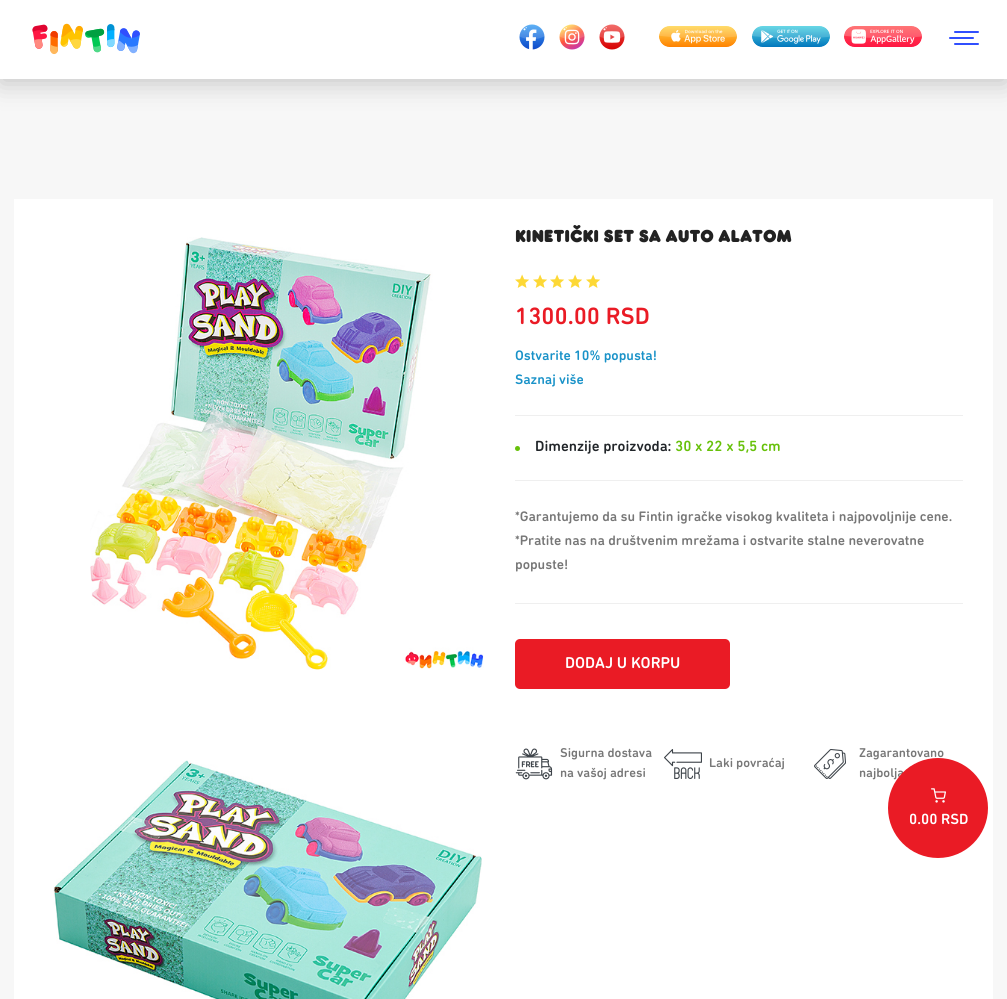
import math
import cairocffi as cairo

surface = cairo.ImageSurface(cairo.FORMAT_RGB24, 1007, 999)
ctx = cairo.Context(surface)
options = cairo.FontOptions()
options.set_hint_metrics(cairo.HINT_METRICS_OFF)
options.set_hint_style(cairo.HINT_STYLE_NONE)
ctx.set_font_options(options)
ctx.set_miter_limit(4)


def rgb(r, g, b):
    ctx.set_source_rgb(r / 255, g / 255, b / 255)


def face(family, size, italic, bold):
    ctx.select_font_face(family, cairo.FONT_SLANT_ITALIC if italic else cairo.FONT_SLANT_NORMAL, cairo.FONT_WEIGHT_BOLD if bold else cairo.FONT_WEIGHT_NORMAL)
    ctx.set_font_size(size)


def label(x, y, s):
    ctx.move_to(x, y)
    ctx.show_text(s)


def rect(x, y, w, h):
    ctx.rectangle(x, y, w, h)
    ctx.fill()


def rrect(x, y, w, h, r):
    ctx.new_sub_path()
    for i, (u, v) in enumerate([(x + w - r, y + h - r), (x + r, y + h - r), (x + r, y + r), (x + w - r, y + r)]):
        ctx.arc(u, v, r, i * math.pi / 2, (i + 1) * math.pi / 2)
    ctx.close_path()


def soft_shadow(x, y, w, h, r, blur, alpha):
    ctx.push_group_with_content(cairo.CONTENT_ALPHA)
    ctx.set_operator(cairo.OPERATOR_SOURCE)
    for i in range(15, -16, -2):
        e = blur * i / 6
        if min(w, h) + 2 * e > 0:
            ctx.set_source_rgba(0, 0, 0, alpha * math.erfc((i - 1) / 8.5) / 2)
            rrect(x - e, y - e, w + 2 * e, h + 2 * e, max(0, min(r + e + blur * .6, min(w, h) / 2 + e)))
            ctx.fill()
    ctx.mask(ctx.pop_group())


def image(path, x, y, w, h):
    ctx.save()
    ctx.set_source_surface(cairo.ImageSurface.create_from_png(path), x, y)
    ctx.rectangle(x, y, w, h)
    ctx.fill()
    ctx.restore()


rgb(247, 247, 247)
ctx.paint()
rgb(0, 0, 0)
soft_shadow(0, 4, 1007, 80, 0, 12.5, 0.2)
rgb(255, 255, 255)
rect(0, 0, 1007, 79)
image('image0.png', 32, 23, 108, 32)
image('image1.png', 519, 24, 26, 26)
image('image2.png', 559, 24, 26, 26)
image('image3.png', 599, 24, 26, 26)
image('image4.png', 659, 26, 78, 21)
image('image5.png', 752, 26, 78, 21)
image('image6.png', 844, 26, 78, 21)
rgb(48, 79, 254)
rrect(954, 31, 25, 2, 1)
ctx.fill()
rrect(949, 37, 25, 2, 1)
ctx.fill()
rrect(954, 43, 25, 2, 1)
ctx.fill()
rgb(255, 255, 255)
rect(14, 199, 979, 800)
image('image7.png', 90, 237, 394, 433)
image('image8.png', 53, 760, 429, 239)
face('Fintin', 18, 0, 1)
rgb(34, 34, 34)
label(515, 242, 'KINETIČKI SET SA AUTO ALATOM')
image('image9.png', 515, 274, 15, 14)
image('image9.png', 533, 274, 15, 14)
image('image9.png', 550, 274, 15, 14)
image('image9.png', 568, 274, 15, 14)
image('image9.png', 586, 274, 15, 14)
face('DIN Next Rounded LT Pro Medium', 24, 0, 0)
rgb(234, 27, 37)
label(515, 324, '1300.00 RSD')
face('DIN Next Rounded LT Pro Medium', 14, 0, 0)
rgb(25, 146, 200)
label(515, 360, 'Ostvarite 10% popusta!')
label(515, 384, 'Saznaj više')
rgb(239, 239, 239)
rect(515, 415, 448, 1)
rgb(103, 193, 10)
ctx.new_path()
ctx.arc(517.5, 448.5, 2.5, 0, 2 * math.pi)
ctx.fill()
face('DIN Next Rounded LT Pro Medium', 15, 0, 0)
rgb(33, 37, 41)
label(535, 451, 'Dimenzije proizvoda:')
rgb(103, 193, 10)
label(675, 451, '30 x 22 x 5,5 cm')
rgb(239, 239, 239)
rect(515, 480, 448, 1)
rect(515, 603, 448, 1)
face('DIN Next Rounded LT Pro Medium', 14, 0, 0)
rgb(119, 119, 119)
label(515, 521, '*Garantujemo da su Fintin igračke visokog kvaliteta i najpovoljnije cene.')
label(515, 545, '*Pratite nas na društvenim mrežama i ostvarite stalne neverovatne')
label(515, 569, 'popuste!')
rgb(234, 27, 37)
rrect(515, 639, 215, 50, 5)
ctx.fill()
face('DIN Next Rounded LT Pro Medium', 16, 0, 0)
rgb(255, 255, 255)
label(565, 668, 'DODAJ U KORPU')
image('image10.png', 515, 748, 38, 32)
face('DIN Next Rounded LT Pro Medium', 13, 0, 0)
rgb(119, 119, 119)
label(560, 757, 'Sigurna dostava')
label(560, 777, 'na vašoj adresi')
image('image11.png', 664, 749, 38, 30)
label(709, 767, 'Laki povraćaj')
image('image12.png', 814, 749, 32, 30)
label(859, 757, 'Zagarantovano')
label(859, 777, 'najbolja')
rgb(234, 27, 37)
ctx.new_path()
ctx.arc(938, 808, 50, 0, 2 * math.pi)
ctx.fill()
image('image13.png', 931, 788, 15, 15)
face('DIN Next Rounded LT Pro Medium', 15, 0, 0)
rgb(255, 255, 255)
label(909, 824, '0.00 RSD')
surface.write_to_png('render.png')
